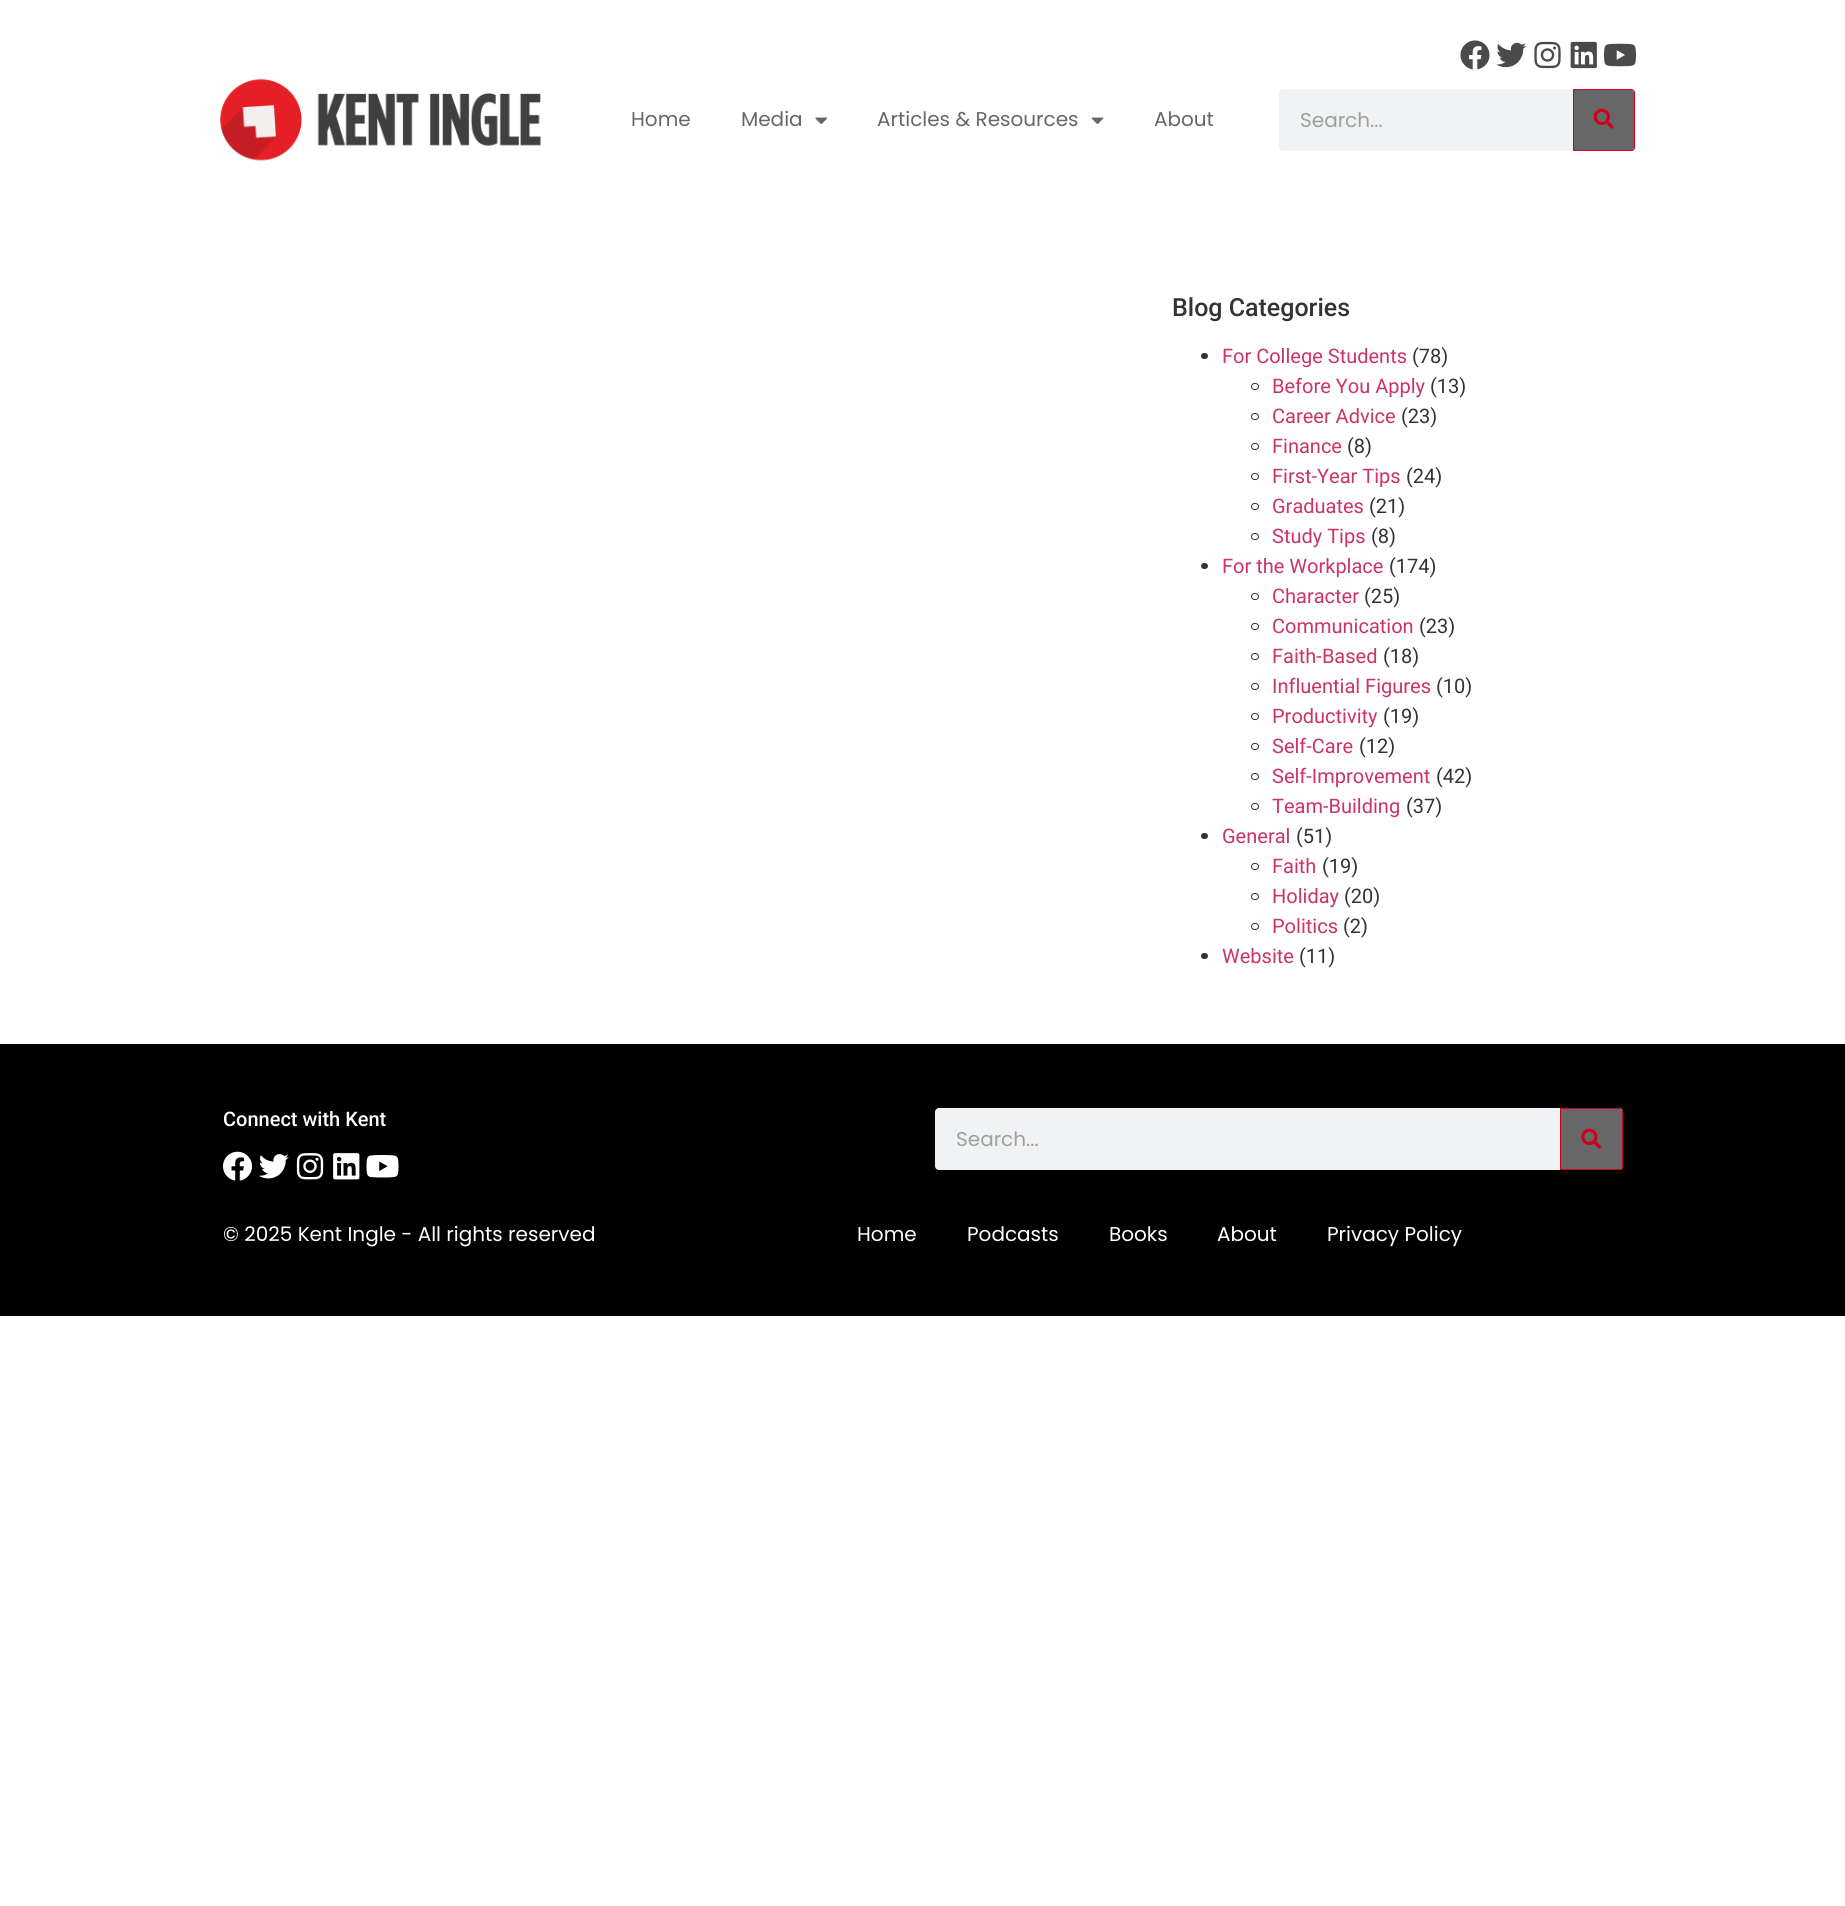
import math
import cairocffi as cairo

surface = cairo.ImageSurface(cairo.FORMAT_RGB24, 1845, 1906)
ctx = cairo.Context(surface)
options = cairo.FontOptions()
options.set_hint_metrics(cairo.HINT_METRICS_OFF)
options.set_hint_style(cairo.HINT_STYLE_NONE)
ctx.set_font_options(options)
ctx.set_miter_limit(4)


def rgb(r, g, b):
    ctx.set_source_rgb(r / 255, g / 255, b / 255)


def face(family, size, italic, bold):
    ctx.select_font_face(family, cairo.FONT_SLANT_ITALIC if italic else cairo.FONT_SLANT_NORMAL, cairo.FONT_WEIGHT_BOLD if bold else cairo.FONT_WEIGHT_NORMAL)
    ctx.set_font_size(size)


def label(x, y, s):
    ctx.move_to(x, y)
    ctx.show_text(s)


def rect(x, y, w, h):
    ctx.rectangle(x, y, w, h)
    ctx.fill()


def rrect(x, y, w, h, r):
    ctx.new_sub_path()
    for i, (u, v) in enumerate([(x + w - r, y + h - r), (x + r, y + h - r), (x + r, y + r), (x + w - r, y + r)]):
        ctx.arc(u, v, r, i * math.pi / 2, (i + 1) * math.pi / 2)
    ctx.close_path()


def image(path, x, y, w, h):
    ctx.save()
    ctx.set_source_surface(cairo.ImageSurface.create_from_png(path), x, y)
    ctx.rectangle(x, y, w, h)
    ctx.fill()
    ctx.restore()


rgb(255, 255, 255)
ctx.paint()
image('image0.png', 1460, 40, 30, 30)
image('image1.png', 1496, 42, 31, 26)
image('image2.png', 1534, 41, 27, 28)
image('image3.png', 1570, 41, 27, 28)
image('image4.png', 1604, 43, 32, 24)
image('image5.png', 220, 79, 322, 82)
face('Poppins', 20, 0, 0)
rgb(103, 103, 103)
label(631, 126, 'Home')
label(741, 126, 'Media')
image('image6.png', 815, 117, 12, 7)
label(877, 126, 'Articles & Resources')
image('image7.png', 1091, 117, 13, 7)
label(1154, 126, 'About')
rgb(241, 242, 243)
rrect(1279, 89, 356, 62, 4)
ctx.fill()
rgb(158, 159, 159)
label(1300, 127, 'Search...')
rgb(103, 103, 103)
ctx.new_path()
ctx.move_to(1573, 89)
ctx.line_to(1631, 89)
ctx.curve_to(1633, 89, 1635, 91, 1635, 93)
ctx.line_to(1635, 147)
ctx.curve_to(1635, 149, 1633, 151, 1631, 151)
ctx.line_to(1573, 151)
ctx.close_path()
ctx.fill()
rgb(206, 0, 25)
ctx.set_fill_rule(cairo.FILL_RULE_EVEN_ODD)
ctx.new_path()
ctx.move_to(1573, 89)
ctx.line_to(1573, 151)
ctx.line_to(1631, 151)
ctx.curve_to(1632, 151, 1633, 151, 1634, 150)
ctx.line_to(1574, 150)
ctx.line_to(1574, 90)
ctx.line_to(1634, 90)
ctx.line_to(1631, 89)
ctx.close_path()
ctx.move_to(1635, 93)
ctx.line_to(1634, 90)
ctx.line_to(1634, 150)
ctx.curve_to(1635, 149, 1635, 148, 1635, 147)
ctx.close_path()
ctx.fill()
image('image8.png', 1593, 108, 21, 21)
face('Roboto Medium', 25, 0, 0)
rgb(51, 51, 51)
label(1172, 316, 'Blog Categories')
rrect(1201, 353, 7, 6, 3)
ctx.fill()
face('Roboto', 20, 0, 0)
rgb(204, 51, 102)
label(1222, 363, 'For College Students')
rgb(51, 51, 51)
label(1412, 363, '(78)')
rrect(1251.5, 383.5, 7, 6, 3)
ctx.set_line_width(1)
ctx.stroke()
rgb(204, 51, 102)
label(1272, 393, 'Before You Apply')
rgb(51, 51, 51)
label(1430, 393, '(13)')
rrect(1251.5, 413.5, 7, 6, 3)
ctx.stroke()
rgb(204, 51, 102)
label(1272, 423, 'Career Advice')
rgb(51, 51, 51)
label(1401, 423, '(23)')
rrect(1251.5, 443.5, 7, 6, 3)
ctx.stroke()
rgb(204, 51, 102)
label(1272, 453, 'Finance')
rgb(51, 51, 51)
label(1347, 453, '(8)')
rrect(1251.5, 473.5, 7, 6, 3)
ctx.stroke()
rgb(204, 51, 102)
label(1272, 483, 'First-Year Tips')
rgb(51, 51, 51)
label(1406, 483, '(24)')
rrect(1251.5, 503.5, 7, 6, 3)
ctx.stroke()
rgb(204, 51, 102)
label(1272, 513, 'Graduates')
rgb(51, 51, 51)
label(1369, 513, '(21)')
rrect(1251.5, 533.5, 7, 6, 3)
ctx.stroke()
rgb(204, 51, 102)
label(1272, 543, 'Study Tips')
rgb(51, 51, 51)
label(1371, 543, '(8)')
rrect(1201, 563, 7, 6, 3)
ctx.fill()
rgb(204, 51, 102)
label(1222, 573, 'For the Workplace')
rgb(51, 51, 51)
label(1389, 573, '(174)')
rrect(1251.5, 593.5, 7, 6, 3)
ctx.stroke()
rgb(204, 51, 102)
label(1272, 603, 'Character')
rgb(51, 51, 51)
label(1364, 603, '(25)')
rrect(1251.5, 623.5, 7, 6, 3)
ctx.stroke()
rgb(204, 51, 102)
label(1272, 633, 'Communication')
rgb(51, 51, 51)
label(1419, 633, '(23)')
rrect(1251.5, 653.5, 7, 6, 3)
ctx.stroke()
rgb(204, 51, 102)
label(1272, 663, 'Faith-Based')
rgb(51, 51, 51)
label(1383, 663, '(18)')
rrect(1251.5, 683.5, 7, 6, 3)
ctx.stroke()
rgb(204, 51, 102)
label(1272, 693, 'Influential Figures')
rgb(51, 51, 51)
label(1436, 693, '(10)')
rrect(1251.5, 713.5, 7, 6, 3)
ctx.stroke()
rgb(204, 51, 102)
label(1272, 723, 'Productivity')
rgb(51, 51, 51)
label(1383, 723, '(19)')
rrect(1251.5, 743.5, 7, 6, 3)
ctx.stroke()
rgb(204, 51, 102)
label(1272, 753, 'Self-Care')
rgb(51, 51, 51)
label(1359, 753, '(12)')
rrect(1251.5, 773.5, 7, 6, 3)
ctx.stroke()
rgb(204, 51, 102)
label(1272, 783, 'Self-Improvement')
rgb(51, 51, 51)
label(1436, 783, '(42)')
rrect(1251.5, 803.5, 7, 6, 3)
ctx.stroke()
rgb(204, 51, 102)
label(1272, 813, 'Team-Building')
rgb(51, 51, 51)
label(1406, 813, '(37)')
rrect(1201, 833, 7, 6, 3)
ctx.fill()
rgb(204, 51, 102)
label(1222, 843, 'General')
rgb(51, 51, 51)
label(1296, 843, '(51)')
rrect(1251.5, 863.5, 7, 6, 3)
ctx.stroke()
rgb(204, 51, 102)
label(1272, 873, 'Faith')
rgb(51, 51, 51)
label(1322, 873, '(19)')
rrect(1251.5, 893.5, 7, 6, 3)
ctx.stroke()
rgb(204, 51, 102)
label(1272, 903, 'Holiday')
rgb(51, 51, 51)
label(1344, 903, '(20)')
rrect(1251.5, 923.5, 7, 6, 3)
ctx.stroke()
rgb(204, 51, 102)
label(1272, 933, 'Politics')
rgb(51, 51, 51)
label(1343, 933, '(2)')
rrect(1201, 953, 7, 6, 3)
ctx.fill()
rgb(204, 51, 102)
label(1222, 963, 'Website')
rgb(51, 51, 51)
label(1299, 963, '(11)')
rgb(0, 0, 0)
rect(0, 1044, 1845, 272)
face('Roboto Medium', 20, 0, 0)
rgb(255, 255, 255)
label(223, 1126, 'Connect with Kent')
image('image9.png', 223, 1151, 29, 30)
image('image10.png', 259, 1154, 30, 25)
image('image11.png', 296, 1153, 28, 27)
image('image12.png', 333, 1153, 27, 27)
image('image13.png', 366, 1155, 33, 23)
rgb(241, 242, 243)
rrect(935, 1108, 688, 62, 4)
ctx.fill()
face('Poppins', 20, 0, 0)
rgb(158, 159, 159)
label(956, 1146, 'Search...')
rgb(103, 103, 103)
ctx.new_path()
ctx.move_to(1560, 1108)
ctx.line_to(1619, 1108)
ctx.curve_to(1621, 1108, 1623, 1110, 1623, 1112)
ctx.line_to(1623, 1166)
ctx.curve_to(1623, 1168, 1621, 1170, 1619, 1170)
ctx.line_to(1560, 1170)
ctx.close_path()
ctx.fill()
rgb(206, 0, 25)
ctx.new_path()
ctx.move_to(1560, 1108)
ctx.line_to(1560, 1170)
ctx.line_to(1619, 1170)
ctx.curve_to(1620, 1170, 1621, 1170, 1622, 1169)
ctx.line_to(1561, 1169)
ctx.line_to(1561, 1109)
ctx.line_to(1622, 1109)
ctx.line_to(1619, 1108)
ctx.close_path()
ctx.move_to(1623, 1112)
ctx.line_to(1622, 1109)
ctx.line_to(1622, 1169)
ctx.curve_to(1623, 1168, 1623, 1167, 1623, 1166)
ctx.close_path()
ctx.fill()
image('image14.png', 1581, 1128, 21, 21)
rgb(255, 255, 255)
label(223, 1241, '© 2025 Kent Ingle - All rights reserved')
label(857, 1241, 'Home')
label(967, 1241, 'Podcasts')
label(1109, 1241, 'Books')
label(1217, 1241, 'About')
label(1327, 1241, 'Privacy Policy')
surface.write_to_png('render.png')
